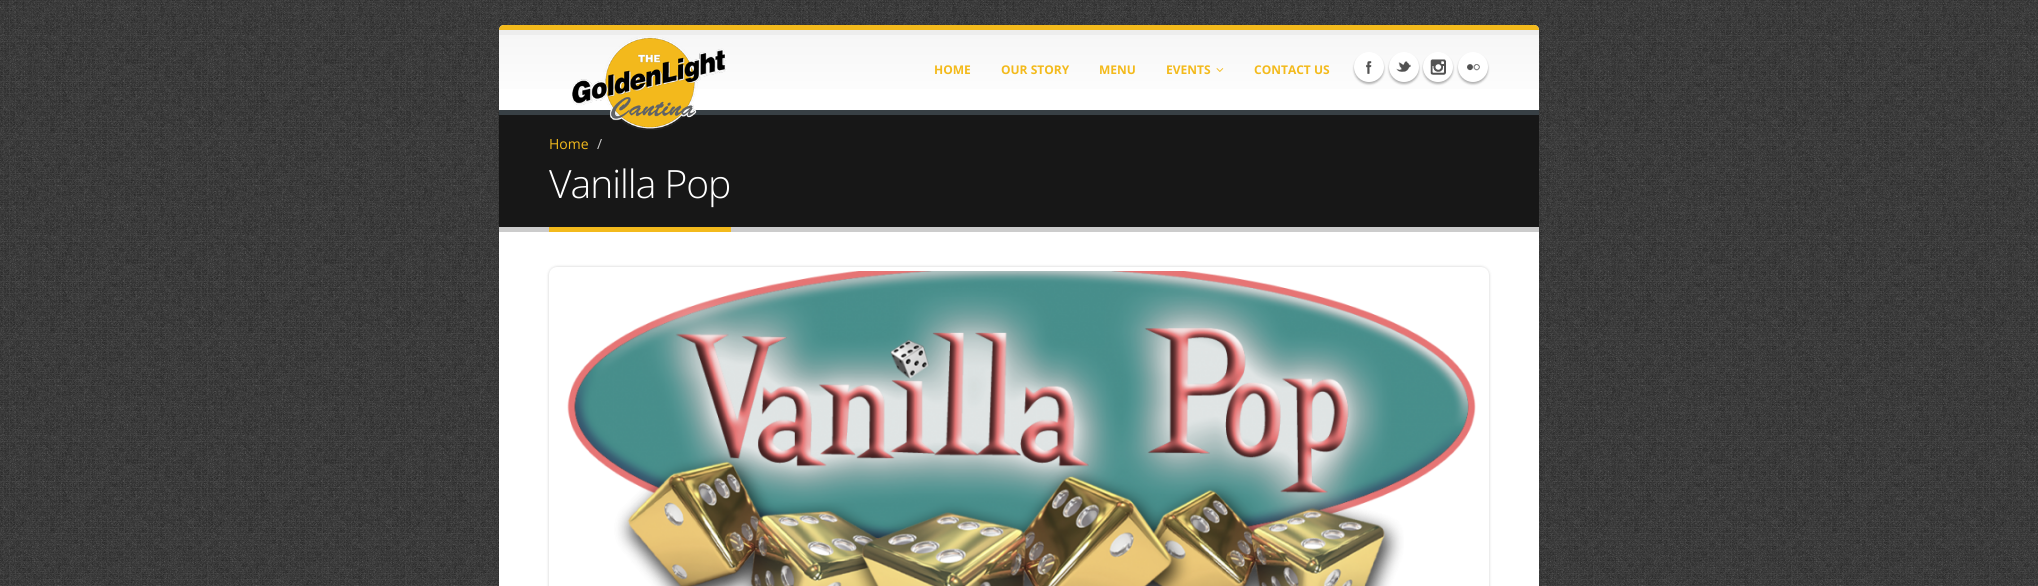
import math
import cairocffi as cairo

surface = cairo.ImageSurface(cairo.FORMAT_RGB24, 2038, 586)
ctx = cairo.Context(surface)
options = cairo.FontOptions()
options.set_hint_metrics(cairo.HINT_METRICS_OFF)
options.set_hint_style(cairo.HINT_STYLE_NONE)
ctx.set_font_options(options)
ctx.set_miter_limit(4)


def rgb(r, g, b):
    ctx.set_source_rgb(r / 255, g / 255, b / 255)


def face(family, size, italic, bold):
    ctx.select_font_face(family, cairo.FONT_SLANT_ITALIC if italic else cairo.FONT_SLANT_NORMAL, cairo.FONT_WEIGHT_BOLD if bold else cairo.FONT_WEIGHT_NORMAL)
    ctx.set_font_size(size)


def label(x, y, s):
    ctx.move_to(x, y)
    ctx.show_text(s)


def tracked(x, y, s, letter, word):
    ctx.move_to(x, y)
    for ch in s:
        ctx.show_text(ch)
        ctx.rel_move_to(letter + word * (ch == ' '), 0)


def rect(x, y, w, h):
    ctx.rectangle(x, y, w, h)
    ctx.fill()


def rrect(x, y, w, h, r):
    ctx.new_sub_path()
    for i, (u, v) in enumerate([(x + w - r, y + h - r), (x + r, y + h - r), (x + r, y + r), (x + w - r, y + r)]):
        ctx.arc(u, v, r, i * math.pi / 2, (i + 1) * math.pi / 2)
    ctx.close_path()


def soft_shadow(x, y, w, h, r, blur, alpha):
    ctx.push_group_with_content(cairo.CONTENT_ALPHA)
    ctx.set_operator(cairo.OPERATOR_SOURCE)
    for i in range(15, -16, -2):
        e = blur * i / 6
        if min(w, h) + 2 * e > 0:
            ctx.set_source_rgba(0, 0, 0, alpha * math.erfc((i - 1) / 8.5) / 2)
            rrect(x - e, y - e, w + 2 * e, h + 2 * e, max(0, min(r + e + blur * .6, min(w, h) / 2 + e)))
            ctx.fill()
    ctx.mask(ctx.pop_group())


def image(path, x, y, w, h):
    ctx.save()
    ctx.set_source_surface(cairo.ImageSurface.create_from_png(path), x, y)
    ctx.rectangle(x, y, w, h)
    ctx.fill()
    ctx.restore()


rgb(255, 255, 255)
ctx.paint()
image('image0.png', 0, 0, 2038, 586)
rgb(0, 0, 0)
soft_shadow(499, 25, 1040, 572, 5, 2, 0.15)
rgb(255, 255, 255)
rrect(499, 25, 1040, 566, 5)
ctx.fill()
rgb(243, 186, 28)
ctx.new_path()
ctx.move_to(504, 25)
ctx.curve_to(501, 25, 499, 27, 499, 30)
ctx.line_to(1539, 30)
ctx.curve_to(1539, 27, 1537, 25, 1534, 25)
ctx.close_path()
ctx.fill()
gradient = cairo.LinearGradient(1019, 35, 1019, 110)
gradient.add_color_stop_rgba(0, 0.965, 0.965, 0.965, 1)
gradient.add_color_stop_rgba(1, 1, 1, 1, 1)
ctx.set_source(gradient)
rect(499, 35, 1040, 54)
rgb(237, 237, 237)
rect(499, 30, 1040, 5)
rgb(23, 23, 23)
rect(499, 115, 1040, 112)
rgb(56, 64, 69)
rect(499, 110, 1040, 5)
image('image1.png', 572, 36, 155, 94)
face('Open Sans', 12, 0, 1)
rgb(243, 186, 28)
label(934, 74, 'HOME')
label(1001, 74, 'OUR STORY')
label(1099, 74, 'MENU')
label(1166, 74, 'EVENTS')
image('image2.png', 1216, 68, 8, 4)
label(1254, 74, 'CONTACT US')
rgb(0, 0, 0)
soft_shadow(1354, 54, 30, 30, 15, 1, 0.3)
rgb(255, 255, 255)
ctx.arc(1369, 67, 15, 0, 2 * math.pi)
ctx.fill()
image('image3.png', 1366, 61, 6, 13)
rgb(0, 0, 0)
soft_shadow(1389, 54, 30, 30, 15, 1, 0.3)
rgb(255, 255, 255)
ctx.arc(1404, 67, 15, 0, 2 * math.pi)
ctx.fill()
image('image4.png', 1396, 61, 15, 11)
rgb(0, 0, 0)
soft_shadow(1423, 54, 30, 30, 15, 1, 0.3)
rgb(255, 255, 255)
ctx.arc(1438, 67, 15, 0, 2 * math.pi)
ctx.fill()
image('image5.png', 1430, 59, 16, 16)
rgb(0, 0, 0)
soft_shadow(1458, 54, 30, 30, 15, 1, 0.3)
rgb(255, 255, 255)
ctx.arc(1473, 67, 15, 0, 2 * math.pi)
ctx.fill()
image('image6.png', 1467, 64, 13, 7)
rgb(204, 204, 204)
rect(499, 227, 1040, 5)
face('Open Sans', 14, 0, 0)
rgb(243, 186, 28)
label(549, 149, 'Home')
rgb(204, 204, 204)
label(597, 149, '/')
rgb(243, 186, 28)
rect(549, 227, 182, 5)
face('Open Sans Light', 39, 0, 0)
rgb(255, 255, 255)
tracked(549, 198, 'Vanilla Pop', -1, 0)
rgb(0, 0, 0)
soft_shadow(549, 267, 940, 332, 8, 1.5, 0.2)
rgb(255, 255, 255)
rrect(551, 269, 936, 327, 6)
ctx.fill_preserve()
ctx.set_line_width(4)
ctx.stroke()
image('image7.png', 567, 271, 909, 315)
surface.write_to_png('render.png')
